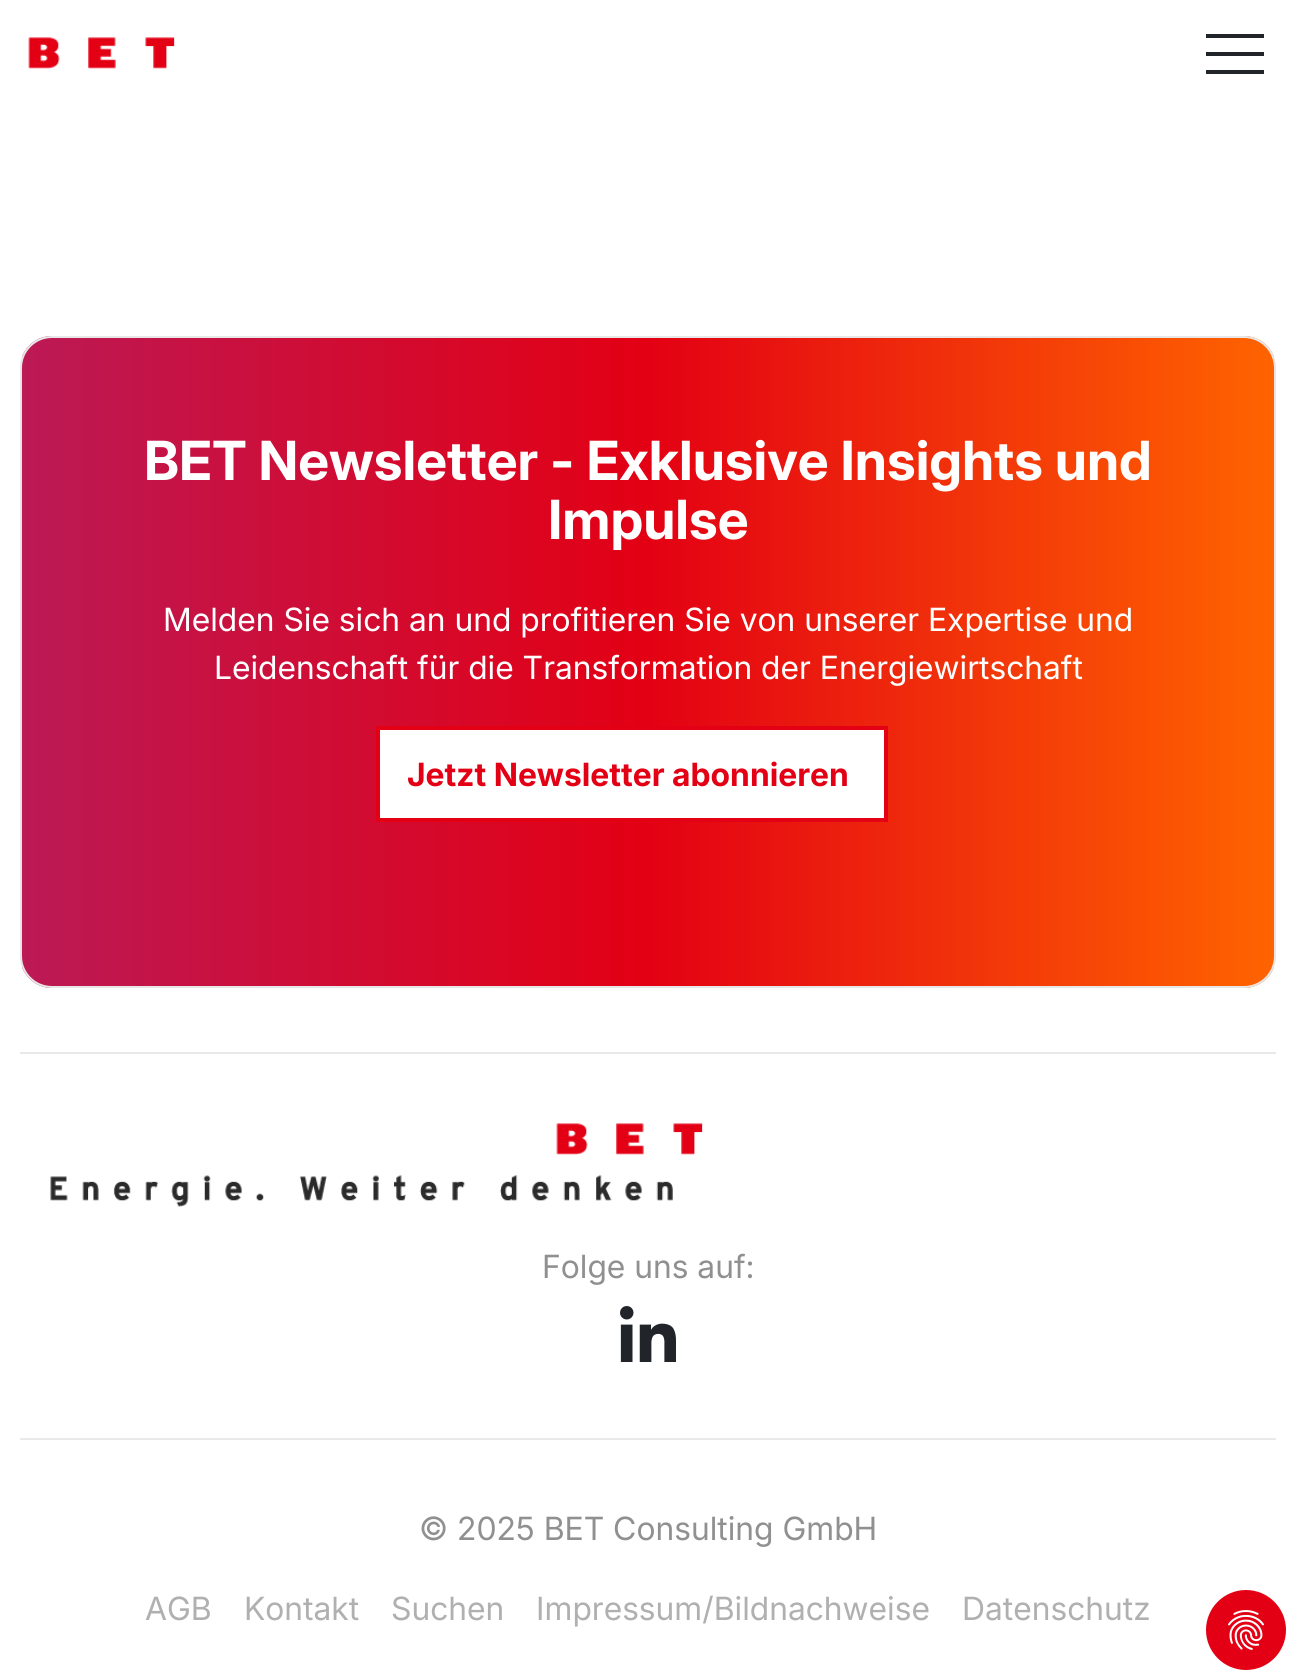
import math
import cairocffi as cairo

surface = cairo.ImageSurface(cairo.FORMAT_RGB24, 1296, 1679)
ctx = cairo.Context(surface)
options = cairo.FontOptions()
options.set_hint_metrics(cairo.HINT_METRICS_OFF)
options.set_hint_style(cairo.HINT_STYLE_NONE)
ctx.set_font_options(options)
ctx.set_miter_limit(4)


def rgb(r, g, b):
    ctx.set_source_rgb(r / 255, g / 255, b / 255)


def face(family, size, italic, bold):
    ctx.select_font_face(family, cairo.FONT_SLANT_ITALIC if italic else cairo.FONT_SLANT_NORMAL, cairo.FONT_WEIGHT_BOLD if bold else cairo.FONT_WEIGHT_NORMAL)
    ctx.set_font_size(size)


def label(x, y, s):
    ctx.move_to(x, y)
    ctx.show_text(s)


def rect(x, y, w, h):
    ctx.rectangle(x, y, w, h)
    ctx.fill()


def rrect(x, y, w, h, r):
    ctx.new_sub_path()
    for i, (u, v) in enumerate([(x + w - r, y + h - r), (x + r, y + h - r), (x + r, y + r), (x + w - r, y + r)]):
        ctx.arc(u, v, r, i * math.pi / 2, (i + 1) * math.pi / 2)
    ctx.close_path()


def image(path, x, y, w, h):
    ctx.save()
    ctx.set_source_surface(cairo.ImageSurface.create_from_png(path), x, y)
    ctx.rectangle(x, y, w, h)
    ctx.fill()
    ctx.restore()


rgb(255, 255, 255)
ctx.paint()
image('image0.png', 28, 37, 147, 32)
rgb(33, 37, 41)
rect(1206, 34, 58, 4)
rect(1206, 52, 58, 4)
rect(1206, 70, 58, 4)
ctx.save()
rrect(20, 336, 1256, 652, 32)
ctx.clip()
gradient = cairo.LinearGradient(22, 662, 1274, 662)
gradient.add_color_stop_rgba(0, 0.737, 0.098, 0.333, 1)
gradient.add_color_stop_rgba(0.5, 0.89, 0, 0.078, 1)
gradient.add_color_stop_rgba(1, 1, 0.392, 0, 1)
ctx.set_source(gradient)
rect(22, 336, 1252, 652)
ctx.restore()
rrect(21, 337, 1254, 650, 31)
rgb(231, 231, 231)
ctx.stroke()
face('Inter', 54, 0, 1)
rgb(255, 255, 255)
label(144, 480, 'BET Newsletter - Exklusive Insights und')
label(548, 539, 'Impulse')
face('Inter', 32, 0, 0)
label(163, 631, 'Melden Sie sich an und profitieren Sie von unserer Expertise und')
label(214, 679, 'Leidenschaft für die Transformation der Energiewirtschaft')
ctx.rectangle(378, 728, 508, 92)
ctx.fill_preserve()
rgb(227, 0, 20)
ctx.set_line_width(4)
ctx.stroke()
face('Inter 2', 32, 0, 1)
label(407, 786, 'Jetzt Newsletter abonnieren')
rgb(232, 233, 233)
rect(20, 1052, 1256, 2)
image('image0.png', 556, 1123, 147, 32)
image('image1.png', 50, 1175, 623, 32)
face('Inter', 32, 0, 0)
rgb(144, 144, 144)
label(542, 1278, 'Folge uns auf:')
image('image2.png', 620, 1306, 56, 56)
rgb(233, 233, 234)
rect(20, 1438, 1256, 2)
rgb(144, 144, 144)
label(419, 1540, '© 2025 BET Consulting GmbH')
rgb(176, 176, 176)
label(145, 1620, 'AGB')
label(244, 1620, 'Kontakt')
label(391, 1620, 'Suchen')
label(536, 1620, 'Impressum/Bildnachweise')
label(962, 1620, 'Datenschutz')
rgb(227, 0, 20)
ctx.new_path()
ctx.arc(1246, 1630, 40, 0, 2 * math.pi)
ctx.fill()
image('image3.png', 1228, 1610, 36, 40)
surface.write_to_png('render.png')
